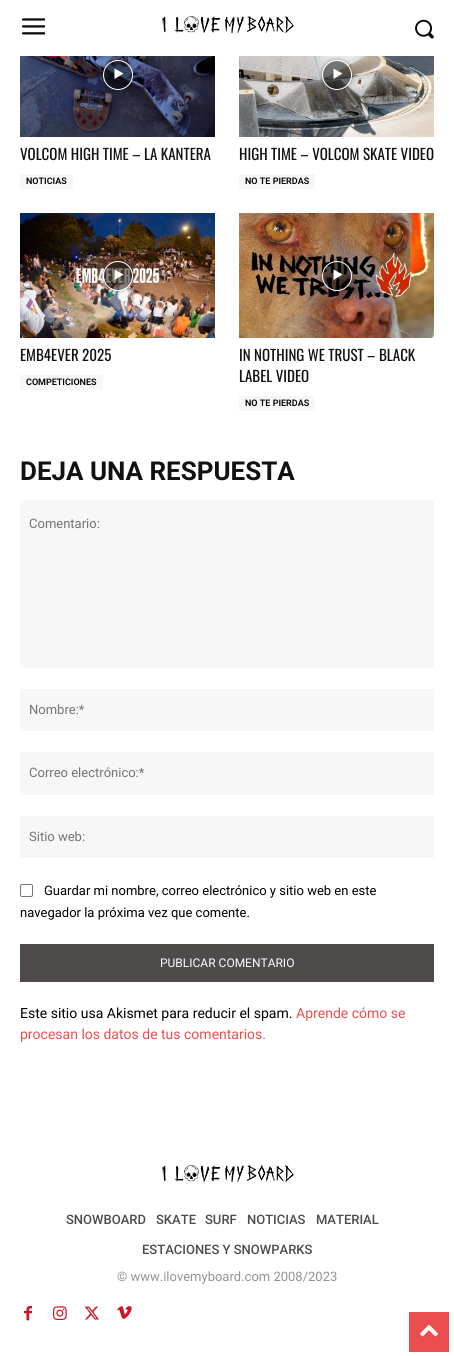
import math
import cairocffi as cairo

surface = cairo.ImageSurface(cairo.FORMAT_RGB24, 454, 1356)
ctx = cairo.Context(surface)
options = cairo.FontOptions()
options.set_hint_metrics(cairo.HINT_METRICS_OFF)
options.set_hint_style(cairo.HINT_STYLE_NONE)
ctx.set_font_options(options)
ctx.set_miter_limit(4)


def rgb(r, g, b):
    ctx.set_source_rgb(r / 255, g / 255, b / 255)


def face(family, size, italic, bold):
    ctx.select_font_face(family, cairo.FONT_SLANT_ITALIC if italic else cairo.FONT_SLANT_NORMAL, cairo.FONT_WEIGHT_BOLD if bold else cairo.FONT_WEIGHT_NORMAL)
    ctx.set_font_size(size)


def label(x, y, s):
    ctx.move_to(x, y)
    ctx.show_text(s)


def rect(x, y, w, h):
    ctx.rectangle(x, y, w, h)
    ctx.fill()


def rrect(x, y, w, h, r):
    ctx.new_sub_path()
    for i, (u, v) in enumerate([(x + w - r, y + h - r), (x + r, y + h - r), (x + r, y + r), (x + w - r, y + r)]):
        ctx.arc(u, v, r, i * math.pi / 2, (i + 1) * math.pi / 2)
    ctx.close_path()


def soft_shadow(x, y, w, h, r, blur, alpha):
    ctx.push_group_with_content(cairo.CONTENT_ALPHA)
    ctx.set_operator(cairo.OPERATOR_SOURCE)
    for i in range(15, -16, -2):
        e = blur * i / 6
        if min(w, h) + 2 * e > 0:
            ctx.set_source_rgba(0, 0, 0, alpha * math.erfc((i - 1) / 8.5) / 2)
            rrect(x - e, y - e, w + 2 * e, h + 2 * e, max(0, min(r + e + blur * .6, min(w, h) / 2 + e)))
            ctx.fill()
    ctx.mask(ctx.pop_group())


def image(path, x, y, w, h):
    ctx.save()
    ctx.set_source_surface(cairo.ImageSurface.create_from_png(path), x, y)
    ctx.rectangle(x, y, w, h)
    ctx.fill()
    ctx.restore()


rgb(255, 255, 255)
ctx.paint()
image('image0.png', 22, 18, 24, 17)
image('image1.png', 162, 16, 132, 18)
image('image2.png', 415, 19, 19, 20)
image('image3.png', 20, 56, 195, 81)
ctx.save()
ctx.set_fill_rule(cairo.FILL_RULE_EVEN_ODD)
ctx.new_path()
ctx.move_to(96, 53)
ctx.line_to(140, 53)
ctx.line_to(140, 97)
ctx.line_to(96, 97)
ctx.close_path()
ctx.move_to(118, 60)
ctx.curve_to(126.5, 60, 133, 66.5, 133, 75)
ctx.curve_to(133, 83.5, 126.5, 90, 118, 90)
ctx.curve_to(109.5, 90, 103, 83.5, 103, 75)
ctx.curve_to(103, 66.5, 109.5, 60, 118, 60)
ctx.close_path()
ctx.clip()
rgb(0, 0, 0)
soft_shadow(103, 60, 30, 30, 15, 2, 0.4)
ctx.restore()
ctx.set_source_rgba(0, 0, 0, 0.48)
ctx.arc(118, 75, 14.5, 0, 2 * math.pi)
ctx.fill_preserve()
rgb(255, 255, 255)
ctx.set_line_width(1)
ctx.stroke()
ctx.new_path()
ctx.move_to(114.5, 68.5)
ctx.line_to(114.5, 79)
ctx.line_to(123.5, 73.5)
ctx.close_path()
ctx.fill()
face('Oswald', 15, 0, 0)
rgb(17, 17, 17)
label(20, 160, 'VOLCOM HIGH TIME – LA KANTERA')
rgb(247, 247, 247)
rect(20, 174, 53, 15)
face('Roboto SemiBold', 9, 0, 0)
rgb(0, 0, 0)
label(26, 184, 'NOTICIAS')
image('image4.png', 239, 56, 195, 81)
ctx.save()
ctx.set_fill_rule(cairo.FILL_RULE_EVEN_ODD)
ctx.new_path()
ctx.move_to(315, 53)
ctx.line_to(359, 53)
ctx.line_to(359, 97)
ctx.line_to(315, 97)
ctx.close_path()
ctx.move_to(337, 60)
ctx.curve_to(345.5, 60, 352, 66.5, 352, 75)
ctx.curve_to(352, 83.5, 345.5, 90, 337, 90)
ctx.curve_to(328.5, 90, 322, 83.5, 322, 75)
ctx.curve_to(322, 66.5, 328.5, 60, 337, 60)
ctx.close_path()
ctx.clip()
rgb(0, 0, 0)
soft_shadow(322, 60, 30, 30, 15, 2, 0.4)
ctx.restore()
ctx.set_source_rgba(0, 0, 0, 0.48)
ctx.arc(337, 75, 14.5, 0, 2 * math.pi)
ctx.fill_preserve()
rgb(255, 255, 255)
ctx.stroke()
ctx.new_path()
ctx.move_to(333.5, 68.5)
ctx.line_to(333.5, 79)
ctx.line_to(342.5, 73.5)
ctx.close_path()
ctx.fill()
face('Oswald', 15, 0, 0)
rgb(17, 17, 17)
label(239, 160, 'HIGH TIME – VOLCOM SKATE VIDEO')
rgb(247, 247, 247)
rect(239, 174, 76, 15)
face('Roboto SemiBold', 9, 0, 0)
rgb(0, 0, 0)
label(245, 184, 'NO TE PIERDAS')
image('image5.png', 20, 213, 195, 125)
ctx.save()
ctx.set_fill_rule(cairo.FILL_RULE_EVEN_ODD)
ctx.new_path()
ctx.move_to(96, 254)
ctx.line_to(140, 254)
ctx.line_to(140, 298)
ctx.line_to(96, 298)
ctx.close_path()
ctx.move_to(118, 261)
ctx.curve_to(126.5, 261, 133, 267.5, 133, 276)
ctx.curve_to(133, 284.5, 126.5, 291, 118, 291)
ctx.curve_to(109.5, 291, 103, 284.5, 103, 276)
ctx.curve_to(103, 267.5, 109.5, 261, 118, 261)
ctx.close_path()
ctx.clip()
rgb(0, 0, 0)
soft_shadow(103, 261, 30, 30, 15, 2, 0.4)
ctx.restore()
ctx.set_source_rgba(0, 0, 0, 0.48)
ctx.arc(118, 276, 14.5, 0, 2 * math.pi)
ctx.fill_preserve()
rgb(255, 255, 255)
ctx.stroke()
ctx.new_path()
ctx.move_to(114.5, 269.5)
ctx.line_to(114.5, 280)
ctx.line_to(123.5, 274.5)
ctx.close_path()
ctx.fill()
face('Oswald', 15, 0, 0)
rgb(17, 17, 17)
label(20, 361, 'EMB4EVER 2025')
rgb(247, 247, 247)
rect(20, 375, 83, 15)
face('Roboto SemiBold', 9, 0, 0)
rgb(0, 0, 0)
label(26, 385, 'COMPETICIONES')
image('image6.png', 239, 213, 195, 125)
ctx.save()
ctx.set_fill_rule(cairo.FILL_RULE_EVEN_ODD)
ctx.new_path()
ctx.move_to(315, 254)
ctx.line_to(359, 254)
ctx.line_to(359, 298)
ctx.line_to(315, 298)
ctx.close_path()
ctx.move_to(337, 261)
ctx.curve_to(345.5, 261, 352, 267.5, 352, 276)
ctx.curve_to(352, 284.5, 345.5, 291, 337, 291)
ctx.curve_to(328.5, 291, 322, 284.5, 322, 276)
ctx.curve_to(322, 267.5, 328.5, 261, 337, 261)
ctx.close_path()
ctx.clip()
rgb(0, 0, 0)
soft_shadow(322, 261, 30, 30, 15, 2, 0.4)
ctx.restore()
ctx.set_source_rgba(0, 0, 0, 0.48)
ctx.arc(337, 276, 14.5, 0, 2 * math.pi)
ctx.fill_preserve()
rgb(255, 255, 255)
ctx.stroke()
ctx.new_path()
ctx.move_to(333.5, 269.5)
ctx.line_to(333.5, 280)
ctx.line_to(342.5, 274.5)
ctx.close_path()
ctx.fill()
face('Oswald', 15, 0, 0)
rgb(17, 17, 17)
label(239, 361, 'IN NOTHING WE TRUST – BLACK')
label(239, 382, 'LABEL VIDEO')
rgb(247, 247, 247)
rect(239, 396, 76, 15)
face('Roboto SemiBold', 9, 0, 0)
rgb(0, 0, 0)
label(245, 406, 'NO TE PIERDAS')
face('Roboto', 26, 0, 1)
rgb(17, 17, 17)
label(20, 480, 'DEJA UNA RESPUESTA')
rgb(247, 247, 247)
rect(20, 500, 414, 168)
face('Roboto', 13, 0, 0)
rgb(117, 117, 117)
label(29, 528, 'Comentario:')
rgb(247, 247, 247)
rect(20, 689, 414, 42)
rgb(117, 117, 117)
label(29, 714, 'Nombre:*')
rgb(247, 247, 247)
rect(20, 752, 414, 43)
rgb(117, 117, 117)
label(29, 777, 'Correo electrónico:*')
rgb(247, 247, 247)
rect(20, 816, 414, 42)
rgb(117, 117, 117)
label(29, 841, 'Sitio web:')
rrect(20.5, 884.5, 12, 12, 1.5)
rgb(118, 118, 118)
ctx.stroke()
rgb(0, 0, 0)
label(44, 895, 'Guardar mi nombre, correo electrónico y sitio web en este')
label(20, 917, 'navegador la próxima vez que comente.')
rgb(79, 75, 75)
rect(20, 944, 414, 38)
face('Roboto', 12, 0, 0)
rgb(255, 255, 255)
label(160, 967, 'PUBLICAR COMENTARIO')
face('Roboto', 14, 0, 0)
rgb(0, 0, 0)
label(20, 1018, 'Este sitio usa Akismet para reducir el spam.')
rgb(234, 77, 77)
label(296, 1018, 'Aprende cómo se')
label(20, 1039, 'procesan los datos de tus comentarios.')
image('image1.png', 162, 1165, 132, 18)
face('Roboto Medium', 13, 0, 0)
rgb(79, 75, 75)
label(66, 1224, 'SNOWBOARD')
label(156, 1224, 'SKATE')
label(205, 1224, 'SURF')
label(247, 1224, 'NOTICIAS')
label(316, 1224, 'MATERIAL')
label(142, 1254, 'ESTACIONES Y SNOWPARKS')
face('Roboto', 13, 0, 0)
rgb(147, 147, 147)
label(117, 1281, '© www.ilovemyboard.com 2008/2023')
image('image7.png', 24, 1305, 8, 16)
image('image8.png', 53, 1306, 14, 14)
image('image9.png', 84, 1306, 15, 14)
image('image10.png', 117, 1306, 15, 13)
rgb(234, 77, 77)
rect(409, 1312, 40, 40)
image('image11.png', 420, 1324, 18, 13)
surface.write_to_png('render.png')
